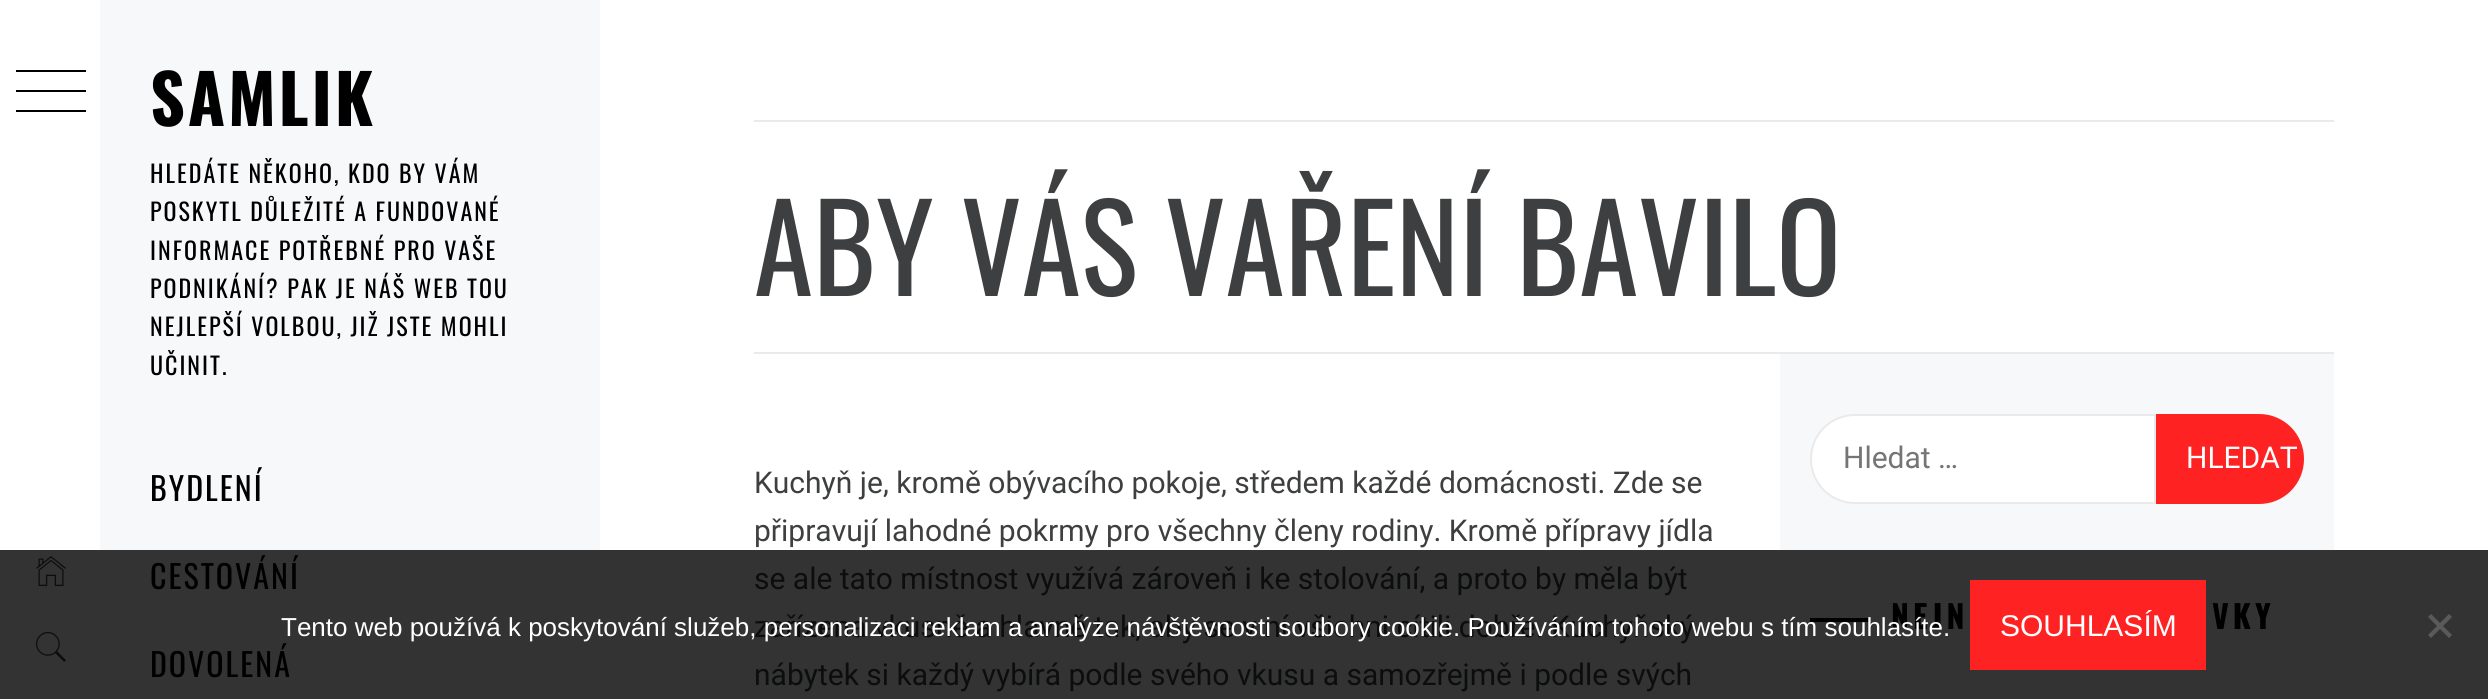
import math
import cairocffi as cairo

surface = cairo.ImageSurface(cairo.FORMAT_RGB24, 2488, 699)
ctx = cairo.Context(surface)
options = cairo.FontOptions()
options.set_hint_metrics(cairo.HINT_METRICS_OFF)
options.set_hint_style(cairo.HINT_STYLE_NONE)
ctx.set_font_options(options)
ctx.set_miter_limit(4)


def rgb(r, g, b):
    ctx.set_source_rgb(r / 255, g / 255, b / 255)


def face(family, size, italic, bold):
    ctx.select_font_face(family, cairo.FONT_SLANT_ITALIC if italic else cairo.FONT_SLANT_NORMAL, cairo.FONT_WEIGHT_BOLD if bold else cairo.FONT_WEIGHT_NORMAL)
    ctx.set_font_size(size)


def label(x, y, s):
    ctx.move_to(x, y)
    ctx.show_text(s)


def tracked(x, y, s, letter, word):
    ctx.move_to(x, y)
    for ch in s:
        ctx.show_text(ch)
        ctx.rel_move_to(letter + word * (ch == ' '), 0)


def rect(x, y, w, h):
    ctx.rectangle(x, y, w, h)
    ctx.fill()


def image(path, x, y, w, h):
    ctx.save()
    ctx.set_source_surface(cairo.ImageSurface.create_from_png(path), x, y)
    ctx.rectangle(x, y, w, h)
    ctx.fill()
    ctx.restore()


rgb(255, 255, 255)
ctx.paint()
rgb(51, 51, 51)
rect(0, 550, 2488, 149)
rgb(0, 0, 0)
rect(16, 70, 70, 2)
rect(16, 90, 70, 2)
rect(16, 110, 70, 2)
image('image0.png', 36, 556, 30, 30)
image('image1.png', 36, 632, 30, 30)
rgb(246, 248, 249)
rect(100, 0, 500, 550)
face('Oswald', 68, 0, 1)
rgb(0, 0, 0)
tracked(150, 126, 'SAMLIK', 2.75, 0)
face('Oswald', 24, 0, 0)
tracked(150, 183, 'HLEDÁTE NĚKOHO, KDO BY VÁM', 2, 0)
tracked(150, 221, 'POSKYTL DŮLEŽITÉ A FUNDOVANÉ', 2, 0)
tracked(150, 260, 'INFORMACE POTŘEBNÉ PRO VAŠE', 2, 0)
tracked(150, 298, 'PODNIKÁNÍ? PAK JE NÁŠ WEB TOU', 2, 0)
tracked(150, 336, 'NEJLEPŠÍ VOLBOU, JIŽ JSTE MOHLI', 2, 0)
tracked(150, 375, 'UČINIT.', 2, 0)
face('Oswald', 32, 0, 0)
tracked(150, 501, 'BYDLENÍ', 2, 0)
tracked(150, 589, 'CESTOVÁNÍ', 2, 0)
tracked(150, 677, 'DOVOLENÁ', 2, 0)
rgb(234, 234, 234)
rect(754, 352, 1580, 2)
rect(754, 120, 1580, 2)
face('Oswald', 120, 0, 0)
rgb(62, 63, 64)
label(754, 296, 'ABY VÁS VAŘENÍ BAVILO')
face('Roboto', 30, 0, 0)
label(754, 493, 'Kuchyň je, kromě obývacího pokoje, středem každé domácnosti. Zde se')
label(754, 541, 'připravují lahodné pokrmy pro všechny členy rodiny. Kromě přípravy jídla')
rgb(12, 13, 13)
label(754, 589, 'se ale tato místnost využívá zároveň i ke stolování, a proto by měla být')
label(754, 637, 'zařízena vkusně a hlavně tak, aby se v ní všichni cítili dobře. Kuchyňský')
label(754, 685, 'nábytek si každý vybírá podle svého vkusu a samozřejmě i podle svých')
rgb(246, 248, 249)
rect(1780, 354, 554, 196)
rgb(255, 255, 255)
ctx.new_path()
ctx.move_to(1855, 415)
ctx.line_to(2155, 415)
ctx.line_to(2155, 503)
ctx.line_to(1855, 503)
ctx.curve_to(1830.5, 503, 1811, 483.5, 1811, 459)
ctx.curve_to(1811, 434.5, 1830.5, 415, 1855, 415)
ctx.close_path()
ctx.fill_preserve()
rgb(234, 234, 234)
ctx.stroke()
rgb(117, 117, 117)
label(1843, 468, 'Hledat …')
rgb(255, 34, 34)
ctx.new_path()
ctx.move_to(2156, 414)
ctx.line_to(2259, 414)
ctx.curve_to(2284, 414, 2304, 434, 2304, 459)
ctx.curve_to(2304, 484, 2284, 504, 2259, 504)
ctx.line_to(2156, 504)
ctx.close_path()
ctx.fill()
rgb(255, 255, 255)
label(2186, 468, 'HLEDAT')
rgb(0, 0, 0)
rect(1810, 618, 60, 4)
face('Oswald', 32, 0, 1)
tracked(1891, 629, 'NEJN', 4, 0)
tracked(2212, 629, 'VKY', 4, 0)
face('Liberation Sans', 26, 0, 0)
rgb(255, 255, 255)
label(281, 636, 'Tento web používá k poskytování služeb, personalizaci reklam a analýze návštěvnosti soubory cookie. Používáním tohoto webu s tím souhlasíte.')
rgb(255, 34, 34)
rect(1970, 580, 236, 90)
face('Liberation Sans', 30, 0, 0)
rgb(255, 255, 255)
label(2000, 636, 'SOUHLASÍM')
rgb(90, 90, 90)
ctx.new_path()
ctx.move_to(2449, 614)
ctx.line_to(2452, 617)
ctx.line_to(2431, 638)
ctx.line_to(2428, 635)
ctx.close_path()
ctx.fill()
ctx.new_path()
ctx.move_to(2428, 617)
ctx.line_to(2431, 614)
ctx.line_to(2452, 635)
ctx.line_to(2449, 638)
ctx.close_path()
ctx.fill()
surface.write_to_png('render.png')
